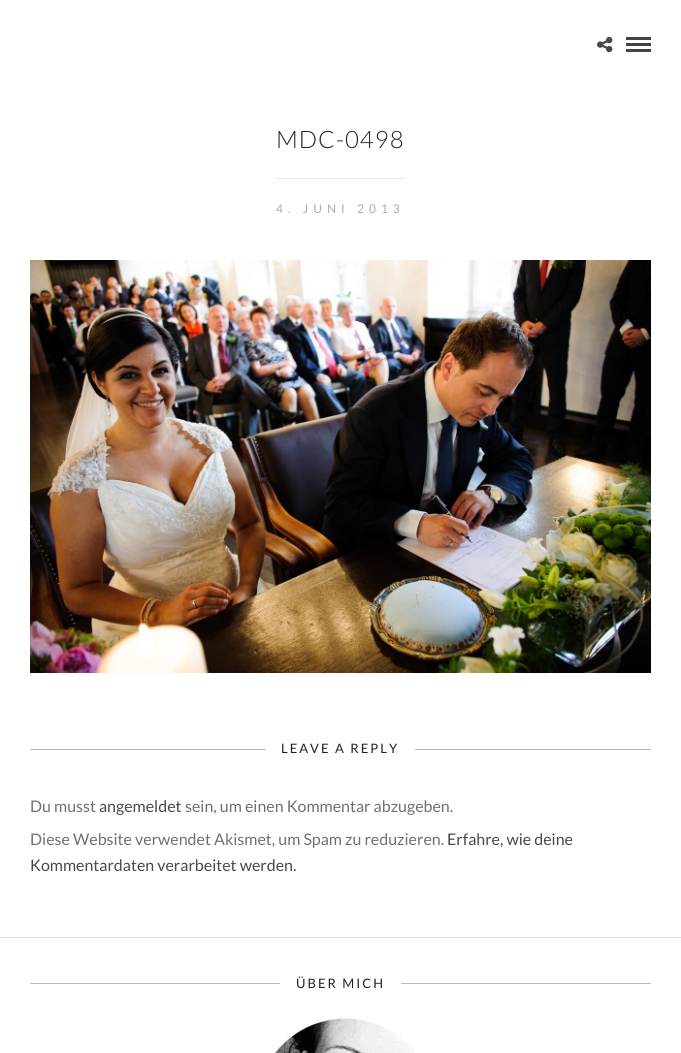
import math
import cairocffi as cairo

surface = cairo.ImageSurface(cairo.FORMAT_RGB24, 681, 1053)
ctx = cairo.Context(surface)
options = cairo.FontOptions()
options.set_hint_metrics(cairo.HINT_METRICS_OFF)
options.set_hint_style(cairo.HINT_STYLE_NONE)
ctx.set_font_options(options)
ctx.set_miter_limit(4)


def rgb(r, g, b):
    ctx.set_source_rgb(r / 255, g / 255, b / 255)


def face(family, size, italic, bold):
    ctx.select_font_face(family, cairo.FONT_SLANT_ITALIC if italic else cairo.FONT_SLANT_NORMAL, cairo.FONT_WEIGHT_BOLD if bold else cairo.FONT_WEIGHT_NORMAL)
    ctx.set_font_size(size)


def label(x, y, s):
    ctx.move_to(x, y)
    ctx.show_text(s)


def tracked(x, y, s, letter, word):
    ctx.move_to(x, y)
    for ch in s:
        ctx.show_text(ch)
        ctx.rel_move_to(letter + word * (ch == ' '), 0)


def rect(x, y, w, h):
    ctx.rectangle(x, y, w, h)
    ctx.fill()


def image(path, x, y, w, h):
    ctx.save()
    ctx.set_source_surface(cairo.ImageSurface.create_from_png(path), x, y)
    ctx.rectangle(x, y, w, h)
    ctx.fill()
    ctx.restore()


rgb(255, 255, 255)
ctx.paint()
image('image0.png', 597, 36, 16, 17)
rgb(68, 68, 68)
rect(626, 37, 25, 3)
rect(626, 43, 25, 3)
rect(626, 49, 25, 3)
face('Lato Light', 24, 0, 0)
rgb(34, 34, 34)
tracked(276, 148, 'MDC-0498', 1, 0)
rgb(231, 231, 231)
rect(276, 178, 129, 1)
face('Lato', 12, 0, 0)
rgb(173, 173, 173)
tracked(276, 213, '4. JUNI 2013', 5, 0)
image('image1.png', 30, 260, 621, 413)
rgb(186, 186, 186)
rect(30, 749, 621, 1)
rgb(255, 255, 255)
rect(266, 749, 149, 1)
face('Lato', 13, 0, 0)
rgb(34, 34, 34)
tracked(281, 753, 'LEAVE A REPLY', 2, 0)
face('Lato', 16, 0, 0)
rgb(112, 112, 112)
label(30, 812, 'Du musst')
rgb(73, 73, 73)
label(99, 812, 'angemeldet')
rgb(112, 112, 112)
label(185, 812, 'sein, um einen Kommentar abzugeben.')
label(30, 845, 'Diese Website verwendet Akismet, um Spam zu reduzieren.')
rgb(73, 73, 73)
label(447, 845, 'Erfahre, wie deine')
label(30, 871, 'Kommentardaten verarbeitet werden.')
rgb(225, 225, 225)
rect(0, 937, 681, 1)
rgb(186, 186, 186)
rect(30, 983, 621, 1)
rgb(255, 255, 255)
rect(280, 983, 121, 1)
face('Lato', 13, 0, 0)
rgb(34, 34, 34)
tracked(296, 988, 'ÜBER MICH', 2, 0)
image('image2.png', 273, 1016, 142, 37)
surface.write_to_png('render.png')
